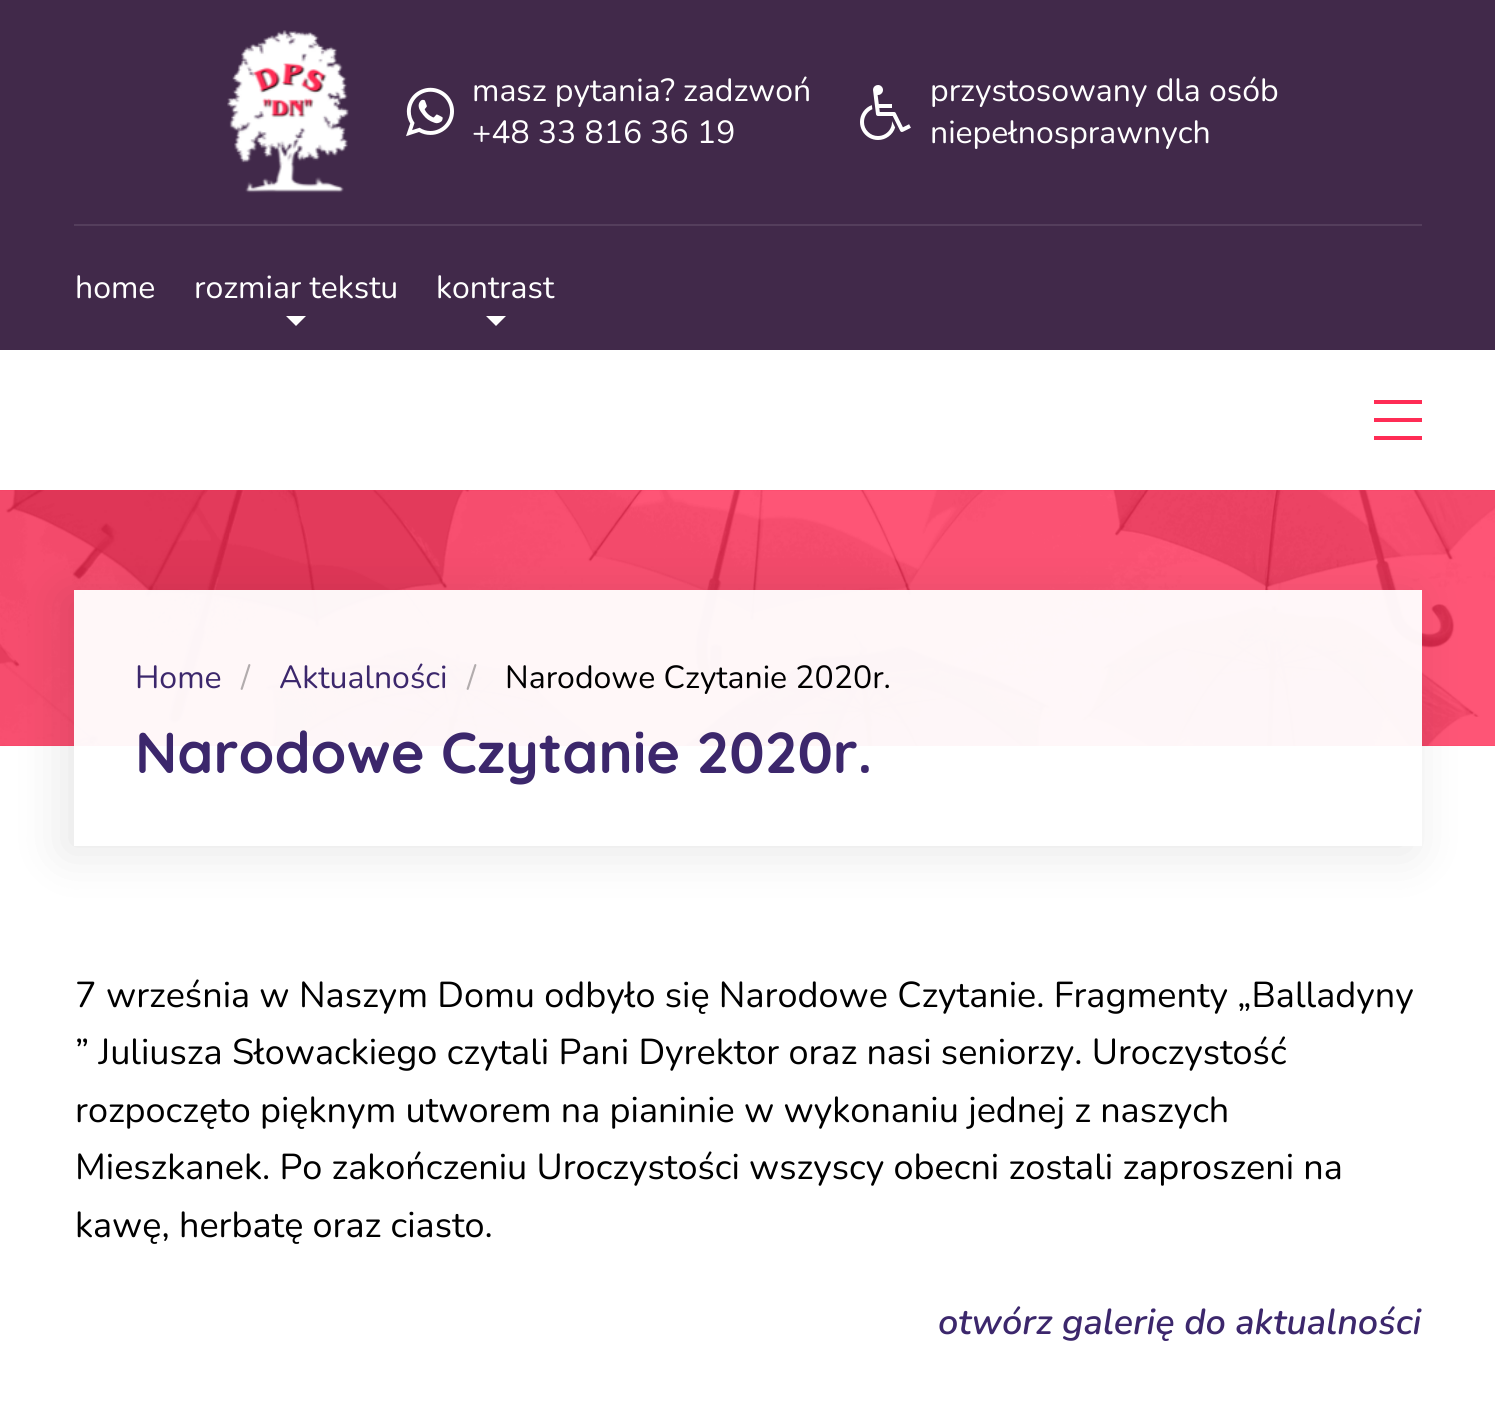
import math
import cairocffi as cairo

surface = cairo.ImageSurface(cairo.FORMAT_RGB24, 1495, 1423)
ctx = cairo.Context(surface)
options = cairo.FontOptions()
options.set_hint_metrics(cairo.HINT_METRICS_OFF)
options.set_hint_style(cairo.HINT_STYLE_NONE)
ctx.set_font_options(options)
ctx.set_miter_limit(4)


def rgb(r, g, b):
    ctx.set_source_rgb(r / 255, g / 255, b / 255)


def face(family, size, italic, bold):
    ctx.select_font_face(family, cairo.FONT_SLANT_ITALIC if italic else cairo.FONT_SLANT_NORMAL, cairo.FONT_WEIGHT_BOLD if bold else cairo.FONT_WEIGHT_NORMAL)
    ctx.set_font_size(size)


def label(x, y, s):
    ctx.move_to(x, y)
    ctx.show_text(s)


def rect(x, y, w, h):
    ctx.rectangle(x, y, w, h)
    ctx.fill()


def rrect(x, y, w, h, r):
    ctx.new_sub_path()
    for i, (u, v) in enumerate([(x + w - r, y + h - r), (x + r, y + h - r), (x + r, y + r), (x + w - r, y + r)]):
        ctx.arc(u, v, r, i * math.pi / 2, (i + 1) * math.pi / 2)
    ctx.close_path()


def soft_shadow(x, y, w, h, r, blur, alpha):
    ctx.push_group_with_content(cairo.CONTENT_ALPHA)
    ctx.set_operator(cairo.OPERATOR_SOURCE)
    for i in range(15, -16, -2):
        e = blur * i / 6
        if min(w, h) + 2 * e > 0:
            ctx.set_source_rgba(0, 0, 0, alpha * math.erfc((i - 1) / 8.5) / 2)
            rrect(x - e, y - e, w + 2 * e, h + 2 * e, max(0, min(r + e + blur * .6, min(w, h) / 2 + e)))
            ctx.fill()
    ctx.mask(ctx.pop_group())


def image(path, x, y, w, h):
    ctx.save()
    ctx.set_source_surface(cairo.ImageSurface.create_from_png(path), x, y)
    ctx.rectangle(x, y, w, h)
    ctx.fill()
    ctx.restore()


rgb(255, 255, 255)
ctx.paint()
rgb(65, 41, 74)
rect(0, 0, 1495, 350)
rgb(84, 62, 92)
rect(74, 224, 1348, 2)
image('image0.png', 227, 30, 122, 163)
image('image1.png', 406, 87, 48, 50)
face('Nunito', 32, 0, 0)
rgb(255, 255, 255)
label(472, 101, 'masz pytania? zadzwoń')
label(472, 143, '+48 33 816 36 19')
image('image2.png', 860, 85, 51, 55)
label(930, 101, 'przystosowany dla osób')
label(930, 143, 'niepełnosprawnych')
label(75, 298, 'home')
label(194, 298, 'rozmiar tekstu')
ctx.new_path()
ctx.move_to(286, 316)
ctx.line_to(306, 316)
ctx.line_to(296, 326)
ctx.close_path()
ctx.fill()
label(436, 298, 'kontrast')
ctx.new_path()
ctx.move_to(486, 316)
ctx.line_to(506, 316)
ctx.line_to(496, 326)
ctx.close_path()
ctx.fill()
rgb(255, 44, 85)
rect(1374, 400, 48, 4)
rect(1374, 436, 48, 4)
rect(1374, 418, 48, 4)
rect(0, 490, 1495, 256)
image('image3.png', 0, 490, 1495, 257)
ctx.save()
ctx.set_fill_rule(cairo.FILL_RULE_EVEN_ODD)
ctx.new_path()
ctx.move_to(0, 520)
ctx.line_to(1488, 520)
ctx.line_to(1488, 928)
ctx.line_to(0, 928)
ctx.close_path()
ctx.move_to(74, 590)
ctx.line_to(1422, 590)
ctx.line_to(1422, 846)
ctx.line_to(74, 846)
ctx.close_path()
ctx.clip()
rgb(0, 0, 0)
soft_shadow(64, 596, 1348, 256, 0, 25, 0.1)
ctx.restore()
ctx.set_source_rgba(1, 1, 1, 0.95)
rect(74, 590, 1348, 157)
rgb(60, 39, 108)
label(135, 688, 'Home')
rgb(178, 172, 173)
label(241, 688, '/')
rgb(60, 39, 108)
label(279, 688, 'Aktualności')
rgb(178, 172, 173)
label(467, 688, '/')
rgb(0, 0, 0)
label(505, 688, 'Narodowe Czytanie 2020r.')
face('Quicksand', 57.6, 0, 1)
rgb(60, 39, 108)
label(135, 773, 'Narodowe Czytanie 2020r.')
face('Nunito', 36, 0, 0)
rgb(0, 0, 0)
label(75, 1007, '7 września w Naszym Domu odbyło się Narodowe Czytanie. Fragmenty „Balladyny')
label(75, 1064, '” Juliusza Słowackiego czytali Pani Dyrektor oraz nasi seniorzy. Uroczystość')
label(75, 1122, 'rozpoczęto pięknym utworem na pianinie w wykonaniu jednej z naszych')
label(75, 1179, 'Mieszkanek. Po zakończeniu Uroczystości wszyscy obecni zostali zaproszeni na')
label(75, 1237, 'kawę, herbatę oraz ciasto.')
face('Nunito SemiBold', 36, 1, 0)
rgb(60, 39, 108)
label(938, 1334, 'otwórz galerię do aktualności')
surface.write_to_png('render.png')
